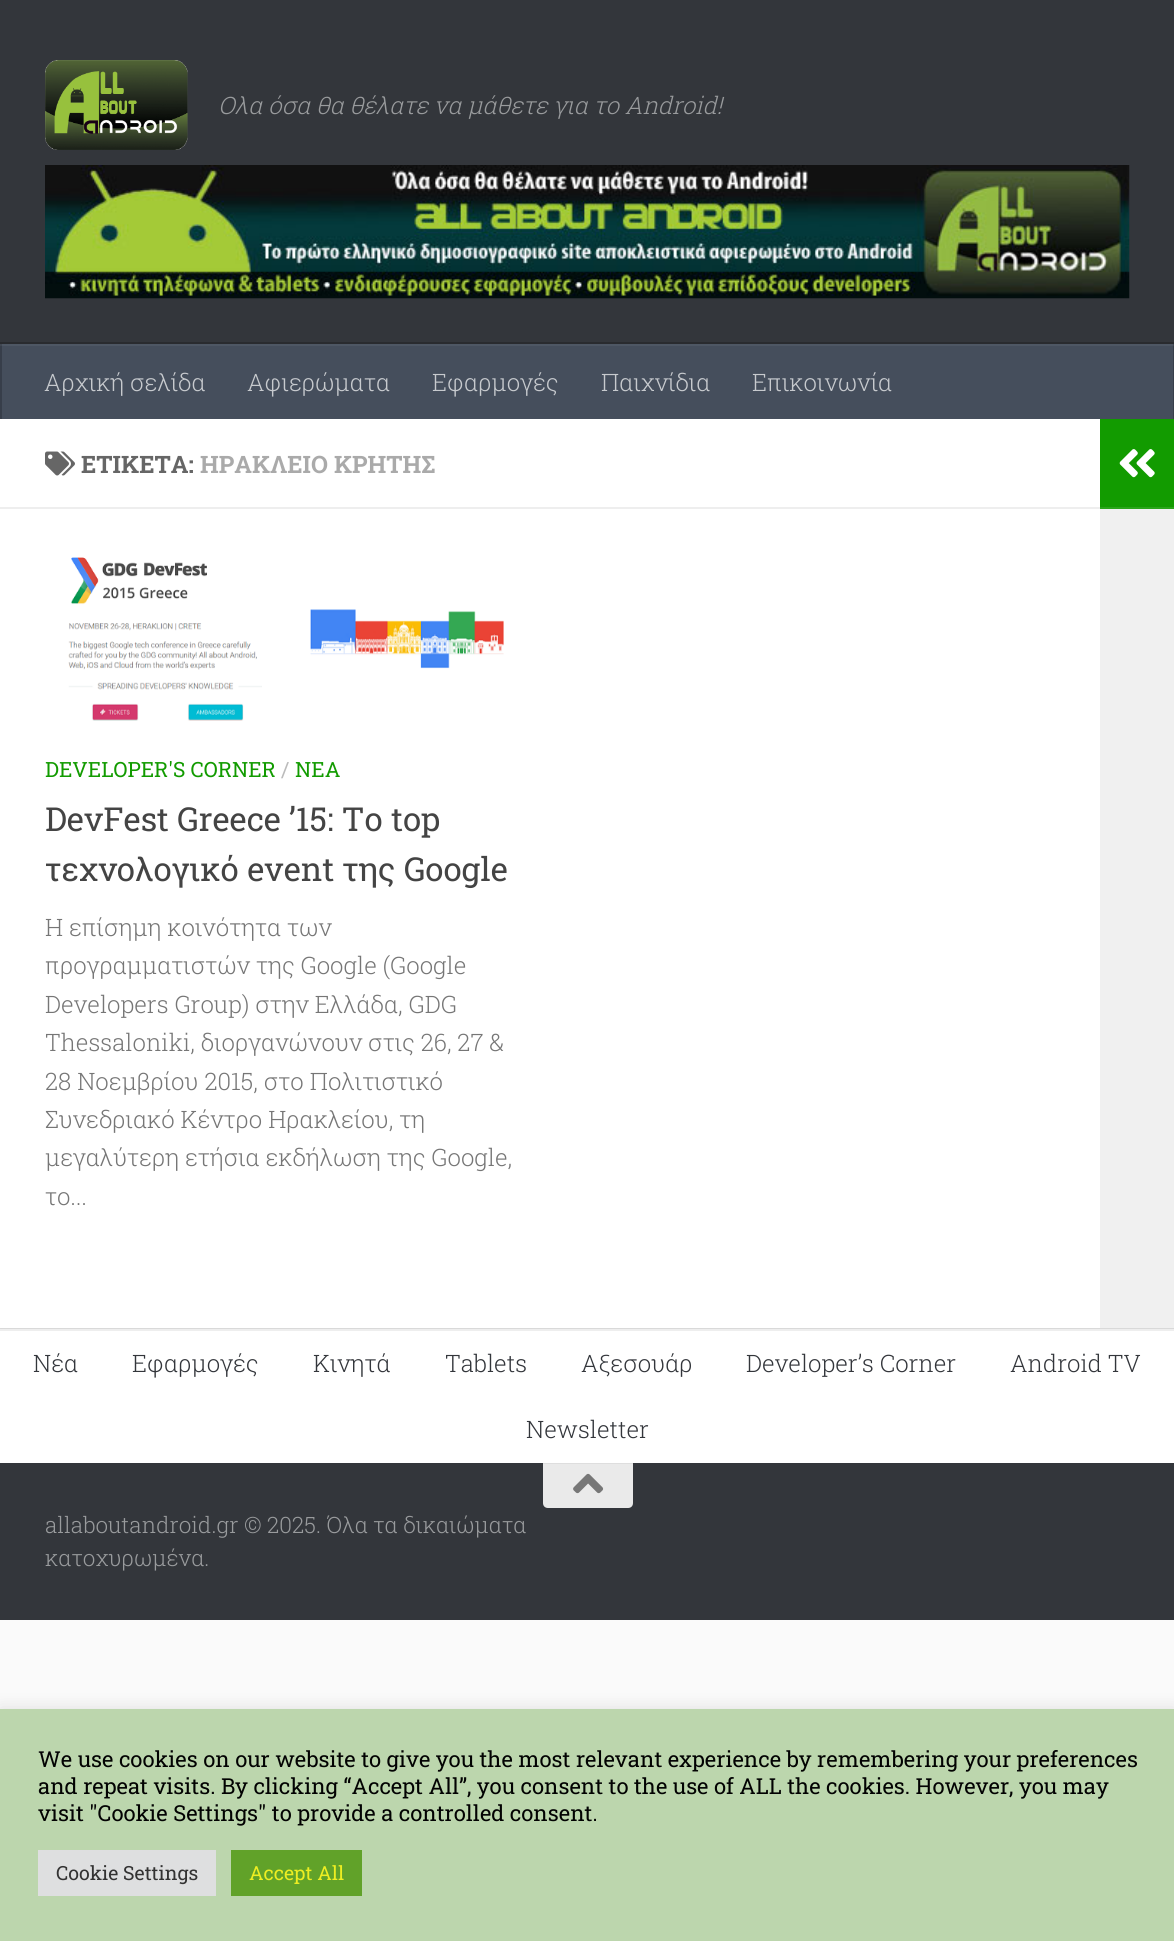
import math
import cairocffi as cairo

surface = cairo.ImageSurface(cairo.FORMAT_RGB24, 1174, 1941)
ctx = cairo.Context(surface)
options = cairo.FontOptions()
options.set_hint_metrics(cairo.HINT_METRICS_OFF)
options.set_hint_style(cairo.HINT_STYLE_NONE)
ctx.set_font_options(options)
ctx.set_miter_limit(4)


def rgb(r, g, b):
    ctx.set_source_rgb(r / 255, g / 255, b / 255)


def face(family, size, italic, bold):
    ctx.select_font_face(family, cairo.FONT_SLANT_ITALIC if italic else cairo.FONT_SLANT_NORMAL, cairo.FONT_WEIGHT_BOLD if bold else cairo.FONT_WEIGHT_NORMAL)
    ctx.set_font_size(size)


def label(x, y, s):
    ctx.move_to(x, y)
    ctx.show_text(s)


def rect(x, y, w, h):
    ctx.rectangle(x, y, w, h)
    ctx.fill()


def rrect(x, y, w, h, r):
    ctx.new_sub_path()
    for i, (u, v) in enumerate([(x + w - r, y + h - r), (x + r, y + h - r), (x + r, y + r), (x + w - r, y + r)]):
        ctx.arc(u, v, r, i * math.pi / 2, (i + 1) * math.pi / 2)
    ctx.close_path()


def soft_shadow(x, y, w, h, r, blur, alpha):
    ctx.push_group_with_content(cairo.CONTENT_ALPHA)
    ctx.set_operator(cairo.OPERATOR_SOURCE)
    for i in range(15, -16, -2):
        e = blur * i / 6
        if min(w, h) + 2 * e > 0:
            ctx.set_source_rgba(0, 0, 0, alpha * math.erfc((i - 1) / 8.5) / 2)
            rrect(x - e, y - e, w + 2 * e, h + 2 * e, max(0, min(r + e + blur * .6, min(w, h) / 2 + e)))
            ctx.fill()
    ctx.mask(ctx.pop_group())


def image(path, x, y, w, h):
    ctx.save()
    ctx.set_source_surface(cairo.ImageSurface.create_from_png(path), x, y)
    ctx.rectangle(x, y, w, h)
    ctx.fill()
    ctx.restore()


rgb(250, 250, 250)
ctx.paint()
rgb(51, 54, 59)
rect(0, 0, 1174, 342)
image('image0.png', 45, 60, 143, 90)
face('Roboto Slab Light', 24, 1, 0)
rgb(153, 155, 157)
label(218, 114, 'Oλα όσα θα θέλατε να μάθετε για το Android!')
image('image1.png', 45, 165, 1085, 134)
rgb(41, 43, 47)
ctx.new_path()
ctx.move_to(0, 342)
ctx.line_to(0, 344)
ctx.line_to(1174, 344)
ctx.line_to(1174, 417)
ctx.line_to(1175, 417)
ctx.line_to(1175, 342)
ctx.close_path()
ctx.fill()
rgb(234, 234, 234)
rect(0, 1328, 1174, 1)
rgb(0, 0, 0)
soft_shadow(0, 420, 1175, 909, 0, 1, 0.1)
rgb(69, 78, 92)
rect(2, 346, 1171, 73)
rgb(78, 87, 100)
rect(0, 344, 1174, 2)
rgb(55, 62, 74)
rect(1173, 344, 1, 75)
rgb(65, 72, 83)
rect(1173, 344, 1, 2)
rgb(55, 62, 74)
rect(0, 344, 2, 75)
rgb(65, 72, 83)
rect(0, 344, 2, 2)
face('Roboto Slab Light', 24, 0, 0)
rgb(199, 202, 206)
label(44, 391, 'Αρχική σελίδα')
label(247, 391, 'Αφιερώματα')
label(432, 391, 'Εφαρμογές')
label(601, 391, 'Παιχνίδια')
label(752, 391, 'Επικοινωνία')
rgb(255, 255, 255)
rect(0, 419, 1100, 909)
rgb(238, 238, 238)
rect(0, 507, 1100, 2)
image('image2.png', 45, 451, 30, 25)
face('Roboto Slab', 24, 0, 1)
rgb(102, 102, 102)
label(81, 473, 'ΕΤΙΚΕΤΑ:')
rgb(170, 170, 170)
label(200, 473, 'ΗΡΑΚΛΕΙΟ ΚΡΗΤΗΣ')
image('image3.png', 68, 557, 436, 164)
face('Roboto Slab', 21, 0, 0)
rgb(18, 155, 0)
label(45, 777, 'DEVELOPER\'S CORNER')
rgb(187, 187, 187)
label(281, 777, '/')
rgb(18, 155, 0)
label(295, 777, 'ΝΕΑ')
face('Roboto Slab', 33, 0, 0)
rgb(68, 68, 68)
label(45, 831, 'DevFest Greece ’15: Το top')
label(45, 881, 'τεχνολογικό event της Google')
face('Roboto Slab Light', 24, 0, 0)
rgb(118, 118, 118)
label(45, 936, 'Η επίσημη κοινότητα των')
label(45, 974, 'προγραμματιστών της Google (Google')
label(45, 1013, 'Developers Group) στην Ελλάδα, GDG')
label(45, 1051, 'Thessaloniki, διοργανώνουν στις 26, 27 &')
label(45, 1090, '28 Νοεμβρίου 2015, στο Πολιτιστικό')
label(45, 1128, 'Συνεδριακό Κέντρο Ηρακλείου, τη')
label(45, 1166, 'μεγαλύτερη ετήσια εκδήλωση της Google,')
label(45, 1205, 'το...')
rgb(18, 155, 0)
rect(1100, 419, 74, 88)
rgb(42, 165, 26)
rect(1100, 507, 74, 2)
image('image4.png', 1119, 449, 36, 29)
rgb(240, 240, 240)
rect(1100, 509, 74, 819)
rgb(255, 255, 255)
rect(0, 1331, 1174, 132)
rgb(238, 238, 238)
rect(0, 1329, 1174, 2)
rgb(51, 54, 59)
label(33, 1372, 'Νέα')
label(132, 1372, 'Εφαρμογές')
label(313, 1372, 'Κινητά')
label(445, 1372, 'Tablets')
label(581, 1372, 'Αξεσουάρ')
label(746, 1372, 'Developer’s Corner')
label(1010, 1372, 'Android TV')
label(526, 1438, 'Newsletter')
rect(0, 1463, 1174, 157)
rgb(234, 234, 234)
ctx.new_path()
ctx.move_to(543, 1463)
ctx.line_to(633, 1463)
ctx.line_to(633, 1503)
ctx.curve_to(633, 1506, 631, 1508, 628, 1508)
ctx.line_to(548, 1508)
ctx.curve_to(545, 1508, 543, 1506, 543, 1503)
ctx.close_path()
ctx.fill()
rgb(222, 222, 222)
rect(543, 1463, 90, 1)
image('image5.png', 573, 1473, 31, 21)
face('Roboto Slab Light', 22.5, 0, 0)
rgb(153, 155, 157)
label(45, 1533, 'allaboutandroid.gr © 2025. Όλα τα δικαιώματα')
label(45, 1566, 'κατοχυρωμένα.')
rgb(172, 171, 171)
soft_shadow(0, 1707, 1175, 233, 0, 7.5, 0.3)
rgb(188, 214, 173)
rect(0, 1709, 1174, 232)
face('Roboto Slab', 22, 0, 0)
rgb(2, 2, 2)
label(38, 1767, 'We use cookies on our website to give you the most relevant experience by remembering your preferences')
label(38, 1794, 'and repeat visits. By clicking “Accept All”, you consent to the use of ALL the cookies. However, you may')
label(38, 1821, 'visit "Cookie Settings" to provide a controlled consent.')
rgb(222, 223, 224)
rect(38, 1850, 178, 46)
face('Roboto Slab', 19.5, 0, 0)
rgb(51, 51, 51)
label(56, 1880, 'Cookie Settings')
rgb(97, 162, 41)
rect(231, 1850, 131, 46)
rgb(238, 238, 34)
label(249, 1880, 'Accept All')
surface.write_to_png('render.png')
